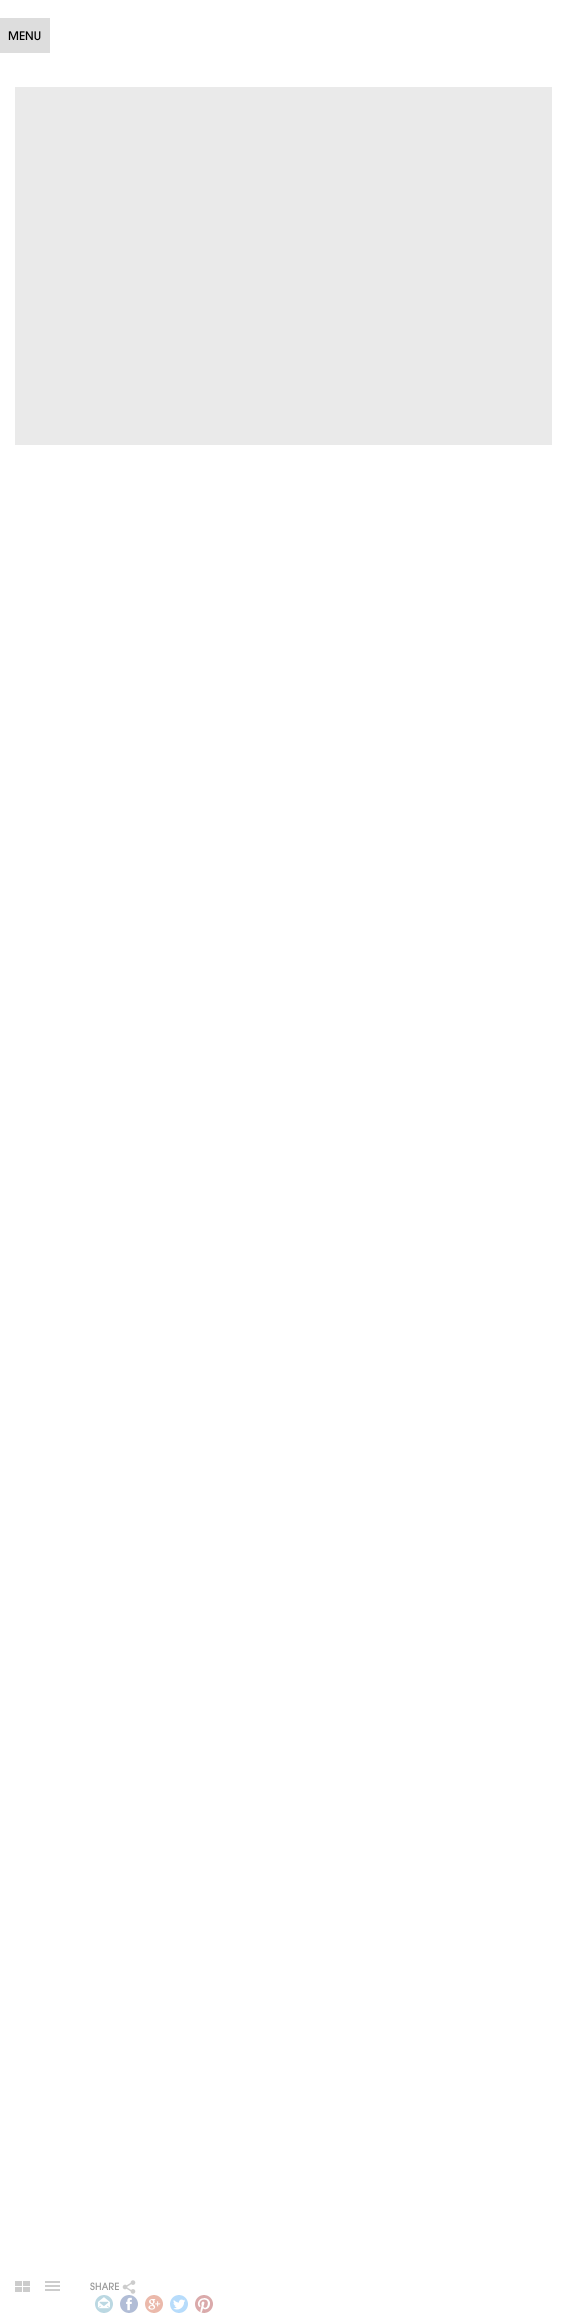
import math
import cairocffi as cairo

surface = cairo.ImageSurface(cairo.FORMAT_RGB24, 567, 2324)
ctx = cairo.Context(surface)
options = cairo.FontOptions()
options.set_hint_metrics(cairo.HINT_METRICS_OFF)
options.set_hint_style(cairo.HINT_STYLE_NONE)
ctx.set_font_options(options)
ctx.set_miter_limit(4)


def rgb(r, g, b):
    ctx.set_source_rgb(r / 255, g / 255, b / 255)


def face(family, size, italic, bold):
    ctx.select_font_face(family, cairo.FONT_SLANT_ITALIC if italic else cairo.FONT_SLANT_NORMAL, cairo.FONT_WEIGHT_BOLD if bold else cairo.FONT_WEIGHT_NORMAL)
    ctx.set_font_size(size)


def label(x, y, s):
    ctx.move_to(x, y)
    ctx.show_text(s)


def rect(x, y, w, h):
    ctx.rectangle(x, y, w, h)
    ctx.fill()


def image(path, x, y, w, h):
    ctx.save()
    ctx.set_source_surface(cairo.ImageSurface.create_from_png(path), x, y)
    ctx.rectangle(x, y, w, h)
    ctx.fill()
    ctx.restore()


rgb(255, 255, 255)
ctx.paint()
rgb(221, 221, 221)
rect(0, 18, 50, 35)
face('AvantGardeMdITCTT', 13, 0, 0)
rgb(0, 0, 0)
label(8, 40, 'MENU')
rgb(234, 234, 234)
rect(15, 87, 537, 358)
image('image0.png', 15, 2281, 15, 11)
image('image1.png', 45, 2281, 15, 10)
image('image2.png', 122, 2280, 14, 14)
face('AvantGardeMdITCTT', 11, 0, 0)
rgb(153, 153, 153)
label(90, 2290, 'SHARE')
image('image3.png', 95, 2295, 18, 18)
image('image4.png', 120, 2295, 18, 18)
image('image5.png', 145, 2295, 18, 18)
image('image6.png', 170, 2295, 18, 18)
image('image7.png', 195, 2295, 18, 18)
surface.write_to_png('render.png')
